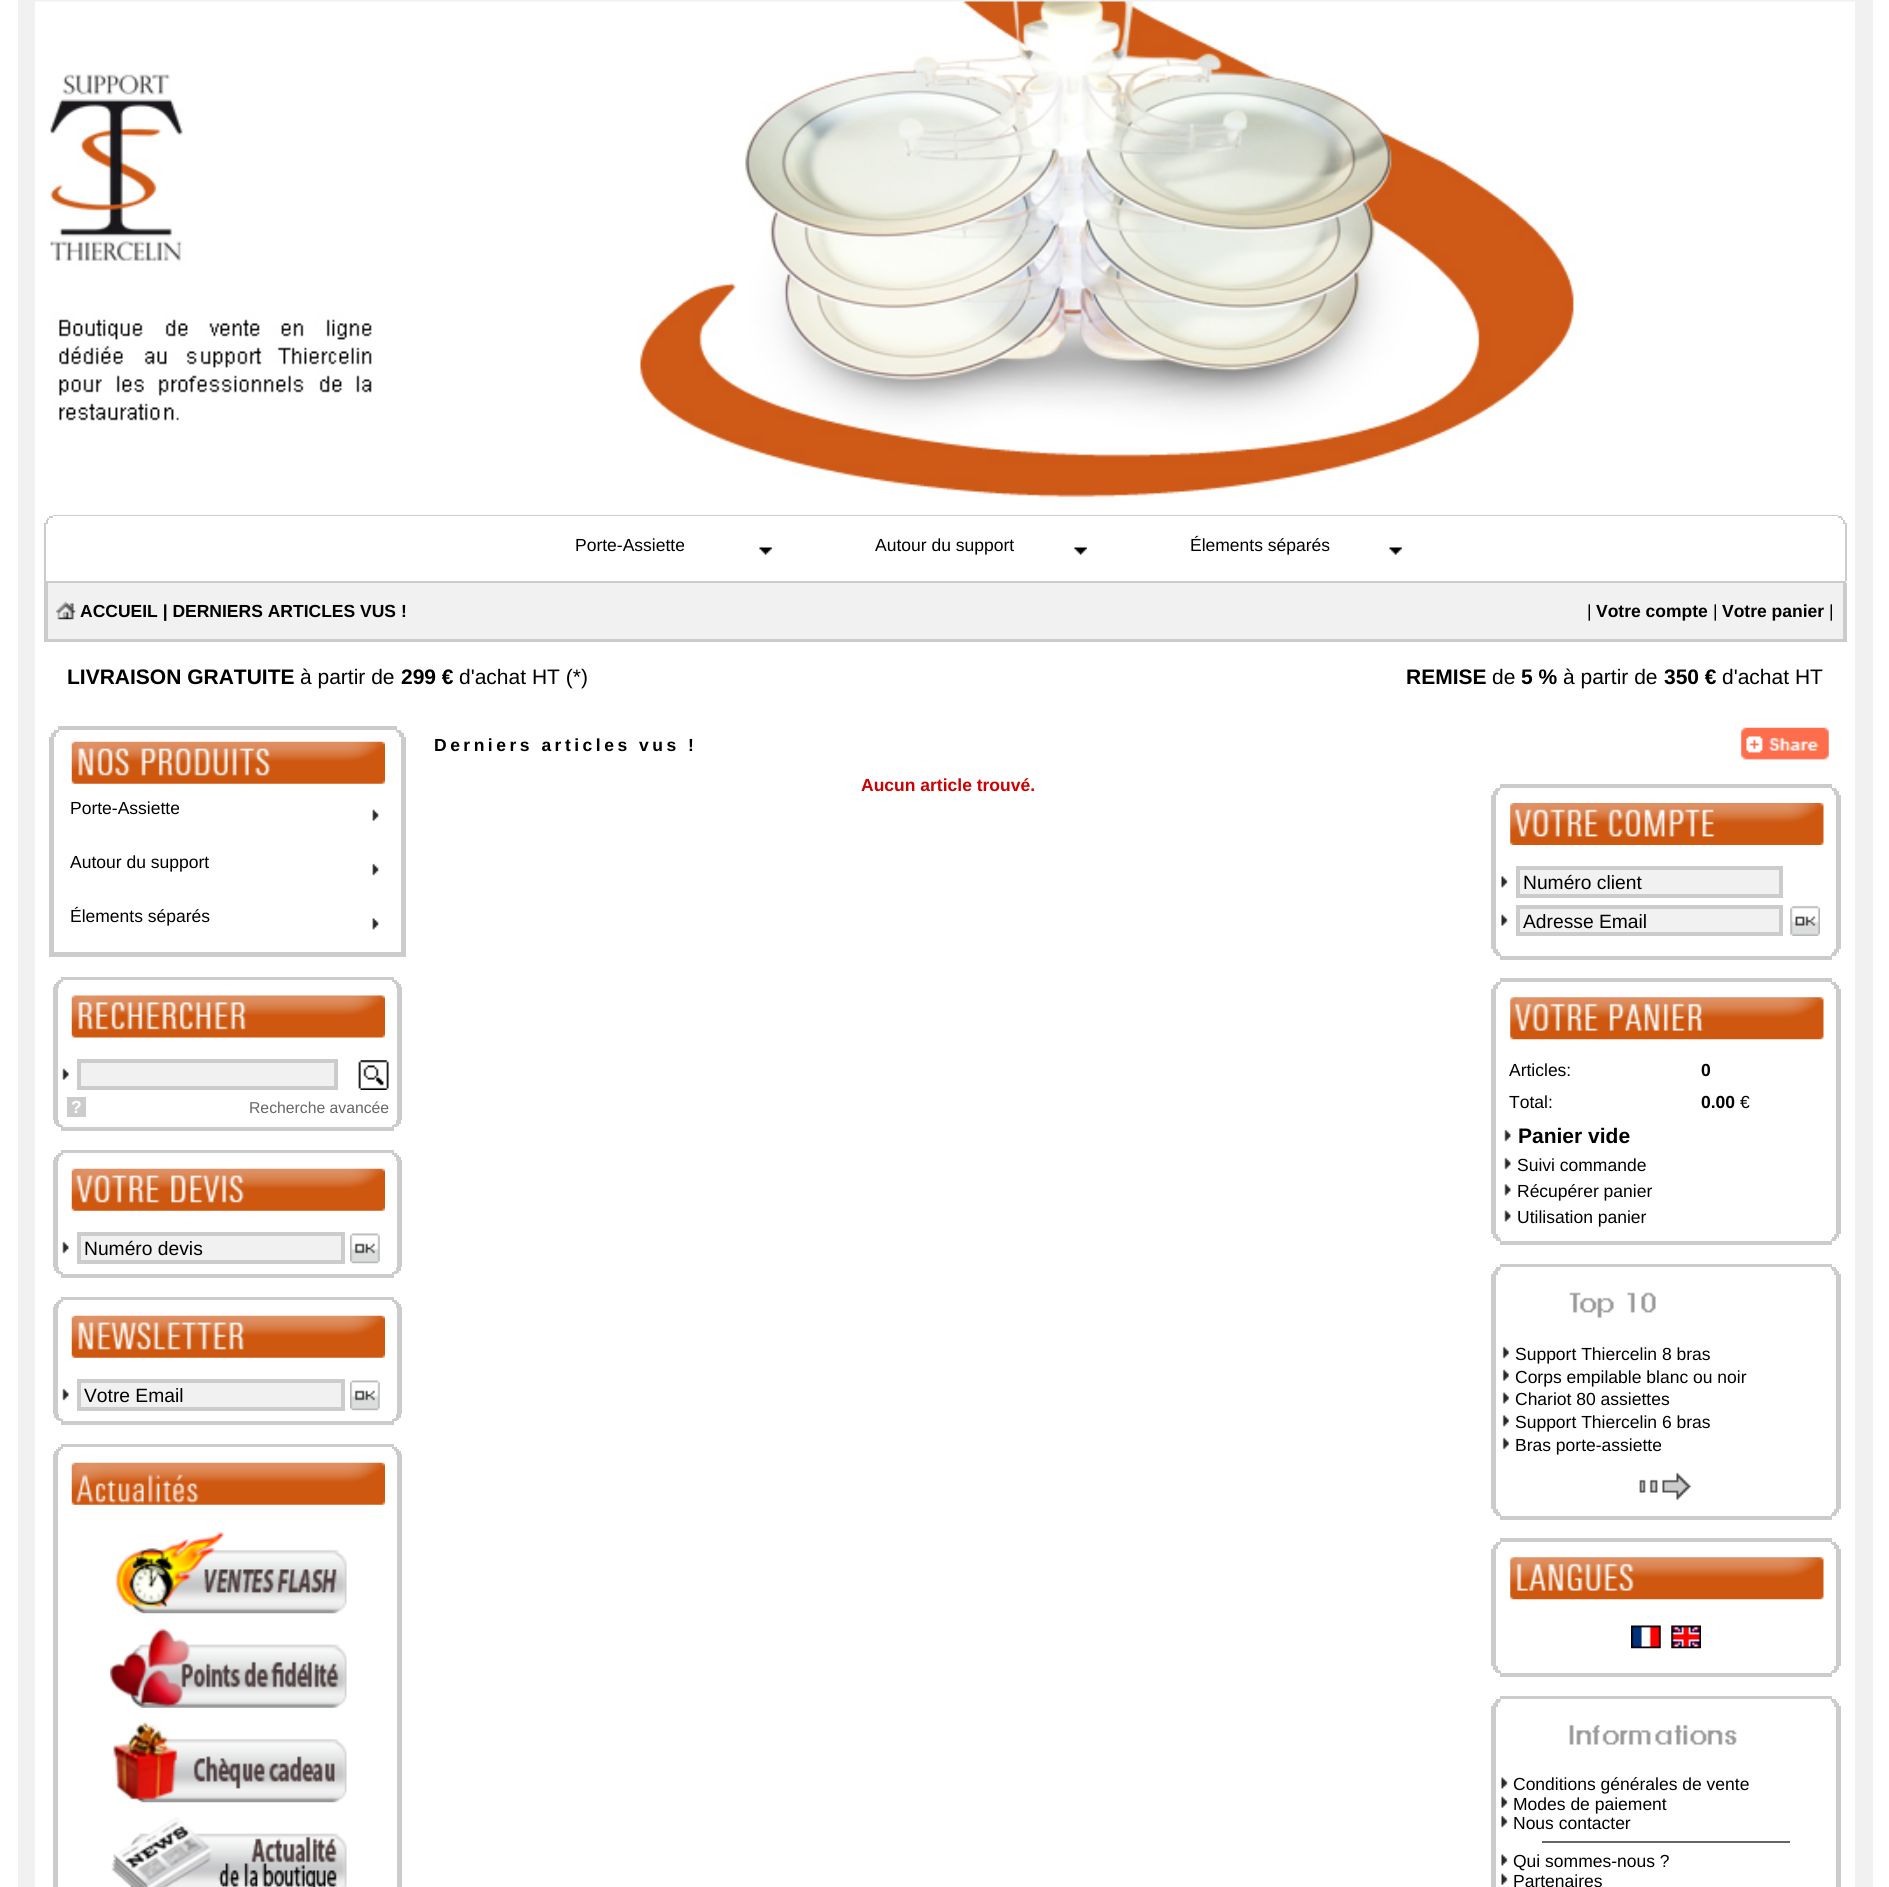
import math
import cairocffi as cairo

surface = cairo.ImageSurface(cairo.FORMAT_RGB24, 1889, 1887)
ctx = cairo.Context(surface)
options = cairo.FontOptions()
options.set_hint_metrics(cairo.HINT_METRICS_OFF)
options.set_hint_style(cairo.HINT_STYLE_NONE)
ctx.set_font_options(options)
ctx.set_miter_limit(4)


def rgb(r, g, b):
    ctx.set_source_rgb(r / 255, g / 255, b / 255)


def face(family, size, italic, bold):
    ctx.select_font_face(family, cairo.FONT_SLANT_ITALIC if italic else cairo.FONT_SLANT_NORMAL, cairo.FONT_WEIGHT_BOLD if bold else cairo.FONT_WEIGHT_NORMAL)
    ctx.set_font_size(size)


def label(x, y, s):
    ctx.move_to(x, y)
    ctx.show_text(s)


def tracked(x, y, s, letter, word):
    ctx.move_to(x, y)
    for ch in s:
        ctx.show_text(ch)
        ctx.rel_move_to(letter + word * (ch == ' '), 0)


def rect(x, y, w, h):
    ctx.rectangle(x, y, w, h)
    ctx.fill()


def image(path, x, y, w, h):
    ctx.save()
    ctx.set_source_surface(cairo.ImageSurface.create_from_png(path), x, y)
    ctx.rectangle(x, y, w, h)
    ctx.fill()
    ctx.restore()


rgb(255, 255, 255)
ctx.paint()
ctx.rectangle(27, -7, 1837, 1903)
rgb(241, 241, 241)
ctx.set_line_width(18)
ctx.stroke()
rgb(255, 255, 255)
rect(35, 498, 1, 1389)
image('image0.png', 35, 1, 1820, 497)
rgb(204, 204, 204)
rect(53, 515, 1785, 1)
rect(1838, 516, 4, 2)
rect(49, 516, 4, 2)
rect(1841, 518, 2, 2)
rect(47, 518, 2, 2)
rect(1843, 520, 2, 4)
rect(46, 520, 2, 4)
rect(1845, 523, 2, 58)
rect(44, 523, 2, 58)
image('image1.png', 759, 547, 13, 8)
face('Liberation Sans', 17.5, 0, 0)
rgb(0, 0, 0)
label(575, 551, 'Porte-Assiette')
image('image2.png', 1074, 547, 13, 8)
label(875, 551, 'Autour du support')
image('image2.png', 1389, 547, 13, 8)
label(1190, 551, 'Élements séparés')
rgb(204, 204, 204)
rect(44, 581, 1802, 2)
rgb(241, 241, 241)
rect(48, 583, 1795, 56)
rgb(204, 204, 204)
rect(1843, 583, 4, 59)
rect(44, 639, 1802, 3)
rect(44, 583, 4, 59)
image('image3.png', 56, 601, 20, 19)
face('Liberation Sans', 17.5, 0, 1)
rgb(0, 0, 0)
label(80, 617, 'ACCUEIL | DERNIERS ARTICLES VUS !')
face('Liberation Sans', 17.5, 0, 0)
label(1587, 617, '|')
face('Liberation Sans', 17.5, 0, 1)
label(1596, 617, 'Votre compte')
face('Liberation Sans', 17.5, 0, 0)
label(1713, 617, '|')
face('Liberation Sans', 17.5, 0, 1)
label(1722, 617, 'Votre panier')
face('Liberation Sans', 17.5, 0, 0)
label(1829, 617, '|')
face('Liberation Sans', 21, 0, 1)
label(67, 684, 'LIVRAISON GRATUITE')
face('Liberation Sans', 21, 0, 0)
label(300, 684, 'à partir de')
face('Liberation Sans', 21, 0, 1)
label(401, 684, '299 €')
face('Liberation Sans', 21, 0, 0)
label(459, 684, 'd\'achat HT (*)')
face('Liberation Sans', 21, 0, 1)
label(1406, 684, 'REMISE')
face('Liberation Sans', 21, 0, 0)
label(1492, 684, 'de')
face('Liberation Sans', 21, 0, 1)
label(1521, 684, '5 %')
face('Liberation Sans', 21, 0, 0)
label(1563, 684, 'à partir de')
face('Liberation Sans', 21, 0, 1)
label(1664, 684, '350 €')
face('Liberation Sans', 21, 0, 0)
label(1722, 684, 'd\'achat HT')
face('Liberation Sans', 17.5, 0, 1)
tracked(434, 751, 'Derniers articles vus !', 3.5, 0)
rgb(204, 0, 0)
label(861, 791, 'Aucun article trouvé.')
rgb(204, 204, 204)
rect(58, 726, 339, 4)
rect(396, 730, 5, 2)
rect(54, 730, 5, 2)
rect(397, 732, 5, 1)
rect(53, 732, 5, 1)
rect(399, 733, 5, 4)
rect(51, 733, 5, 4)
rect(401, 737, 5, 220)
rect(49, 737, 5, 52)
image('image4.png', 71, 741, 314, 43)
rect(49, 952, 357, 5)
rect(49, 789, 5, 168)
image('image5.png', 372, 809, 7, 12)
face('Liberation Sans', 17.5, 0, 0)
rgb(0, 0, 0)
label(70, 814, 'Porte-Assiette')
image('image6.png', 372, 863, 7, 13)
label(70, 868, 'Autour du support')
image('image7.png', 372, 918, 7, 12)
label(70, 922, 'Élements séparés')
rgb(204, 204, 204)
rect(61, 977, 333, 3)
rect(392, 980, 5, 2)
rect(58, 980, 5, 2)
rect(394, 982, 5, 2)
rect(56, 982, 5, 2)
rect(397, 987, 5, 133)
rect(53, 987, 5, 133)
rgb(255, 255, 255)
rect(54, 987, 347, 1)
rgb(204, 204, 204)
rect(396, 984, 5, 4)
rect(54, 984, 5, 4)
image('image8.png', 71, 995, 314, 43)
image('image9.png', 62, 1068, 7, 12)
rgb(241, 241, 241)
ctx.rectangle(79, 1061, 257, 27)
ctx.fill_preserve()
rgb(204, 204, 204)
ctx.set_line_width(4)
ctx.stroke()
image('image10.png', 358, 1060, 31, 30)
rect(67, 1097, 19, 20)
face('Liberation Sans', 17.5, 0, 1)
rgb(255, 255, 255)
label(71, 1113, '?')
face('Liberation Sans', 15.75, 0, 0)
rgb(102, 102, 102)
label(249, 1113, 'Recherche avancée')
rgb(204, 204, 204)
rect(396, 1120, 5, 4)
rect(54, 1120, 5, 4)
rect(394, 1124, 5, 2)
rect(56, 1124, 5, 2)
rgb(255, 255, 255)
rect(58, 1125, 339, 1)
rgb(204, 204, 204)
rect(392, 1125, 5, 2)
rect(58, 1125, 5, 2)
rect(61, 1127, 333, 4)
rect(61, 1150, 333, 3)
rect(392, 1153, 5, 2)
rect(58, 1153, 5, 2)
rect(394, 1155, 5, 2)
rect(56, 1155, 5, 2)
rect(397, 1160, 5, 107)
rect(53, 1160, 5, 107)
rgb(255, 255, 255)
rect(54, 1160, 347, 1)
rgb(204, 204, 204)
rect(396, 1157, 5, 4)
rect(54, 1157, 5, 4)
image('image11.png', 71, 1168, 314, 43)
image('image12.png', 62, 1241, 7, 13)
rgb(241, 241, 241)
ctx.rectangle(79, 1234, 264, 28)
ctx.fill_preserve()
rgb(204, 204, 204)
ctx.stroke()
face('Liberation Sans', 19.25, 0, 0)
rgb(0, 0, 0)
label(84, 1255, 'Numéro devis')
image('image13.png', 350, 1233, 30, 31)
rgb(204, 204, 204)
rect(396, 1267, 5, 4)
rect(54, 1267, 5, 4)
rect(394, 1271, 5, 2)
rect(56, 1271, 5, 2)
rgb(255, 255, 255)
rect(58, 1272, 339, 1)
rgb(204, 204, 204)
rect(392, 1272, 5, 2)
rect(58, 1272, 5, 2)
rect(61, 1274, 333, 4)
rect(61, 1297, 333, 3)
rect(392, 1300, 5, 2)
rect(58, 1300, 5, 2)
rect(394, 1302, 5, 2)
rect(56, 1302, 5, 2)
rect(397, 1307, 5, 107)
rect(53, 1307, 5, 107)
rgb(255, 255, 255)
rect(54, 1307, 347, 1)
rgb(204, 204, 204)
rect(396, 1304, 5, 4)
rect(54, 1304, 5, 4)
image('image14.png', 71, 1315, 314, 43)
image('image12.png', 62, 1388, 7, 13)
rgb(241, 241, 241)
ctx.rectangle(79, 1381, 264, 28)
ctx.fill_preserve()
rgb(204, 204, 204)
ctx.stroke()
rgb(0, 0, 0)
label(84, 1402, 'Votre Email')
image('image13.png', 350, 1380, 30, 31)
rgb(204, 204, 204)
rect(396, 1414, 5, 4)
rect(54, 1414, 5, 4)
rect(394, 1418, 5, 2)
rect(56, 1418, 5, 2)
rgb(255, 255, 255)
rect(58, 1419, 339, 1)
rgb(204, 204, 204)
rect(392, 1419, 5, 2)
rect(58, 1419, 5, 2)
rect(61, 1421, 333, 4)
rect(61, 1444, 333, 3)
rect(392, 1447, 5, 2)
rect(58, 1447, 5, 2)
rect(394, 1449, 5, 2)
rect(56, 1449, 5, 2)
rect(397, 1454, 5, 433)
rect(53, 1454, 5, 433)
rgb(255, 255, 255)
rect(54, 1454, 347, 1)
rgb(204, 204, 204)
rect(396, 1451, 5, 4)
rect(54, 1451, 5, 4)
image('image15.png', 71, 1462, 314, 43)
image('image16.png', 115, 1532, 232, 82)
image('image17.png', 110, 1628, 237, 80)
image('image18.png', 113, 1721, 234, 82)
image('image19.png', 111, 1817, 236, 70)
image('image20.png', 1741, 727, 88, 33)
rect(1500, 784, 332, 4)
rect(1831, 788, 5, 1)
rect(1496, 788, 5, 1)
rect(1832, 789, 5, 2)
rect(1495, 789, 5, 2)
rect(1834, 791, 5, 4)
rect(1493, 791, 5, 4)
rect(1836, 795, 5, 154)
rect(1491, 795, 5, 154)
image('image21.png', 1510, 803, 314, 42)
image('image22.png', 1501, 876, 7, 12)
rgb(241, 241, 241)
ctx.rectangle(1518, 868, 263, 28)
ctx.fill_preserve()
rgb(204, 204, 204)
ctx.stroke()
rgb(0, 0, 0)
label(1523, 889, 'Numéro client')
image('image23.png', 1501, 914, 7, 12)
rgb(241, 241, 241)
ctx.rectangle(1518, 907, 263, 27)
ctx.fill_preserve()
rgb(204, 204, 204)
ctx.stroke()
rgb(0, 0, 0)
label(1523, 928, 'Adresse Email')
image('image24.png', 1790, 906, 30, 30)
rgb(204, 204, 204)
rect(1834, 949, 5, 4)
rect(1493, 949, 5, 4)
rgb(255, 255, 255)
rect(1495, 952, 343, 1)
rgb(204, 204, 204)
rect(1832, 952, 5, 2)
rect(1495, 952, 5, 2)
rect(1831, 954, 5, 2)
rect(1496, 954, 5, 2)
rect(1500, 956, 332, 4)
rect(1500, 978, 332, 4)
rect(1831, 982, 5, 2)
rect(1496, 982, 5, 2)
rect(1832, 984, 5, 1)
rect(1495, 984, 5, 1)
rect(1834, 985, 5, 4)
rect(1493, 985, 5, 4)
rect(1836, 989, 5, 245)
rect(1491, 989, 5, 245)
image('image25.png', 1510, 997, 314, 43)
face('Liberation Sans', 17.5, 0, 0)
rgb(0, 0, 0)
label(1509, 1076, 'Articles:')
face('Liberation Sans', 17.5, 0, 1)
label(1701, 1076, '0')
face('Liberation Sans', 17.5, 0, 0)
label(1509, 1108, 'Total:')
face('Liberation Sans', 17.5, 0, 1)
label(1701, 1108, '0.00')
face('Liberation Sans', 17.5, 0, 0)
label(1740, 1108, '€')
image('image26.png', 1504, 1129, 7, 13)
face('Liberation Sans', 21, 0, 1)
label(1518, 1143, 'Panier vide')
image('image26.png', 1504, 1157, 7, 13)
face('Liberation Sans', 17.5, 0, 0)
label(1517, 1171, 'Suivi commande')
image('image27.png', 1504, 1184, 7, 12)
label(1517, 1197, 'Récupérer panier')
image('image28.png', 1504, 1210, 7, 12)
label(1517, 1223, 'Utilisation panier')
rgb(204, 204, 204)
rect(1834, 1234, 5, 4)
rect(1493, 1234, 5, 4)
rgb(255, 255, 255)
rect(1495, 1237, 343, 1)
rgb(204, 204, 204)
rect(1832, 1237, 5, 2)
rect(1495, 1237, 5, 2)
rect(1831, 1239, 5, 2)
rect(1496, 1239, 5, 2)
rect(1500, 1241, 332, 4)
rect(1500, 1264, 332, 3)
rect(1831, 1267, 5, 2)
rect(1496, 1267, 5, 2)
rect(1832, 1269, 5, 2)
rect(1495, 1269, 5, 2)
rect(1836, 1274, 5, 235)
rect(1491, 1274, 5, 235)
rgb(255, 255, 255)
rect(1493, 1274, 346, 1)
rgb(204, 204, 204)
rect(1834, 1271, 5, 4)
rect(1493, 1271, 5, 4)
image('image29.png', 1569, 1292, 87, 26)
image('image30.png', 1502, 1346, 7, 13)
rgb(0, 0, 0)
label(1515, 1360, 'Support Thiercelin 8 bras')
image('image31.png', 1502, 1369, 7, 12)
label(1515, 1383, 'Corps empilable blanc ou noir')
image('image32.png', 1502, 1392, 7, 12)
label(1515, 1405, 'Chariot 80 assiettes')
image('image33.png', 1502, 1415, 7, 12)
label(1515, 1428, 'Support Thiercelin 6 bras')
image('image30.png', 1502, 1437, 7, 13)
label(1515, 1451, 'Bras porte-assiette')
image('image34.png', 1639, 1472, 52, 28)
rgb(204, 204, 204)
rect(1834, 1509, 5, 4)
rect(1493, 1509, 5, 4)
rgb(255, 255, 255)
rect(1495, 1512, 343, 1)
rgb(204, 204, 204)
rect(1832, 1512, 5, 2)
rect(1495, 1512, 5, 2)
rect(1831, 1514, 5, 2)
rect(1496, 1514, 5, 2)
rect(1500, 1516, 332, 4)
rect(1500, 1538, 332, 4)
rect(1831, 1542, 5, 2)
rect(1496, 1542, 5, 2)
rect(1832, 1544, 5, 1)
rect(1495, 1544, 5, 1)
rect(1834, 1545, 5, 4)
rect(1493, 1545, 5, 4)
rect(1836, 1549, 5, 117)
rect(1491, 1549, 5, 117)
image('image35.png', 1510, 1557, 314, 43)
image('image36.png', 1631, 1625, 30, 24)
image('image37.png', 1671, 1625, 30, 24)
rect(1834, 1666, 5, 4)
rect(1493, 1666, 5, 4)
rect(1832, 1670, 5, 2)
rect(1495, 1670, 5, 2)
rgb(255, 255, 255)
rect(1496, 1671, 340, 1)
rgb(204, 204, 204)
rect(1831, 1671, 5, 2)
rect(1496, 1671, 5, 2)
rect(1500, 1673, 332, 4)
rect(1500, 1696, 332, 3)
rect(1831, 1699, 5, 2)
rect(1496, 1699, 5, 2)
rect(1832, 1701, 5, 2)
rect(1495, 1701, 5, 2)
rect(1836, 1706, 5, 181)
rect(1491, 1706, 5, 181)
rgb(255, 255, 255)
rect(1493, 1706, 346, 1)
rgb(204, 204, 204)
rect(1834, 1703, 5, 4)
rect(1493, 1703, 5, 4)
image('image38.png', 1569, 1724, 168, 21)
image('image39.png', 1501, 1777, 7, 12)
rgb(0, 0, 0)
label(1513, 1790, 'Conditions générales de vente')
image('image23.png', 1501, 1796, 7, 12)
label(1513, 1810, 'Modes de paiement')
image('image40.png', 1501, 1815, 7, 13)
label(1513, 1829, 'Nous contacter')
rgb(102, 102, 102)
rect(1542, 1841, 248, 2)
image('image39.png', 1501, 1854, 7, 12)
rgb(0, 0, 0)
label(1513, 1867, 'Qui sommes-nous ?')
image('image41.png', 1501, 1873, 7, 12)
label(1513, 1887, 'Partenaires')
surface.write_to_png('render.png')
